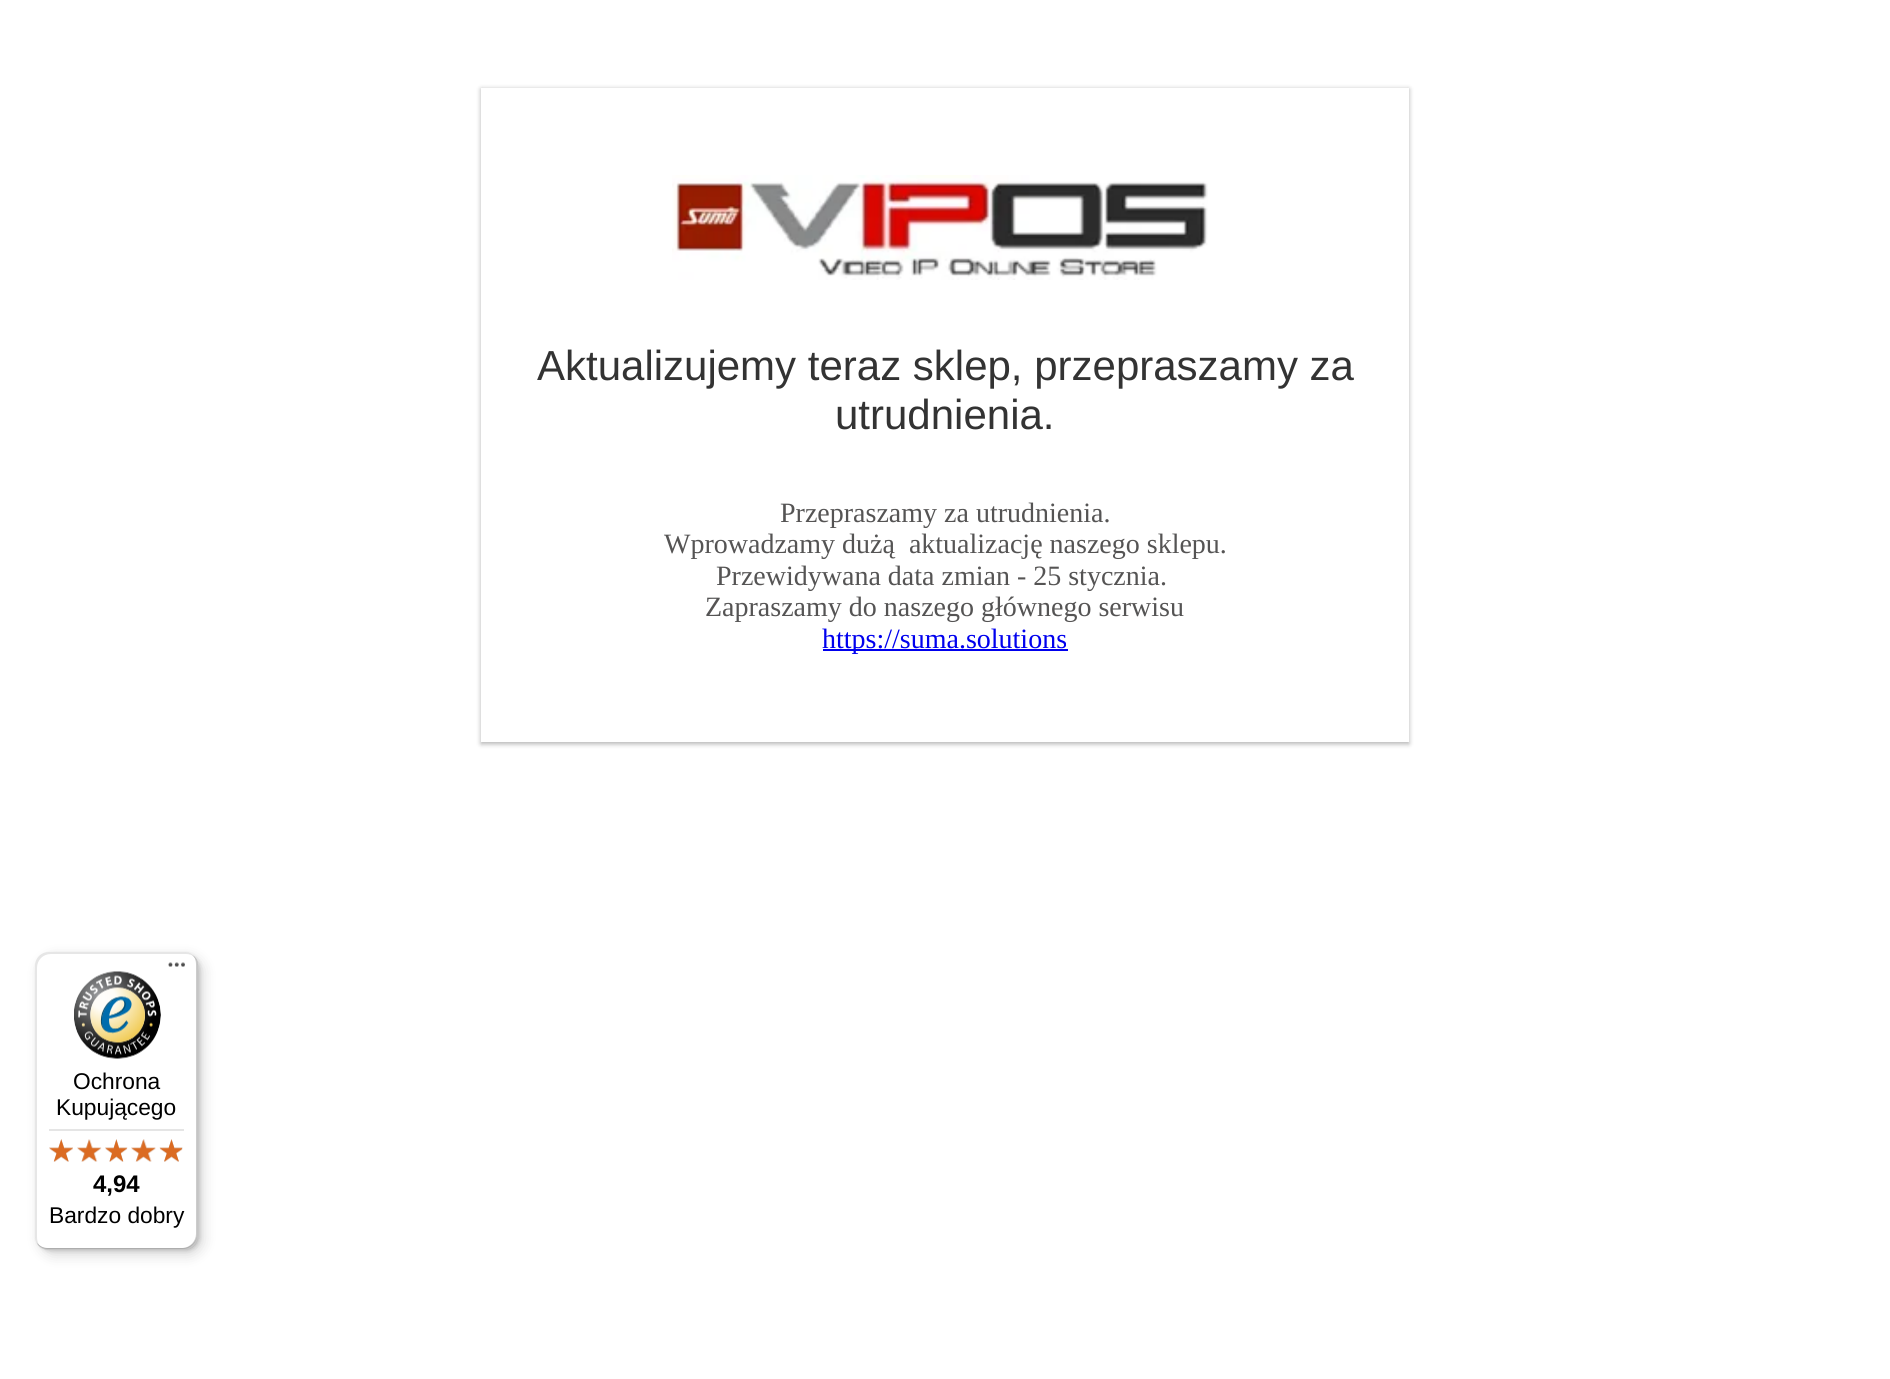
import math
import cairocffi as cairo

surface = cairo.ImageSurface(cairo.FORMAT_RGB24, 1890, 1379)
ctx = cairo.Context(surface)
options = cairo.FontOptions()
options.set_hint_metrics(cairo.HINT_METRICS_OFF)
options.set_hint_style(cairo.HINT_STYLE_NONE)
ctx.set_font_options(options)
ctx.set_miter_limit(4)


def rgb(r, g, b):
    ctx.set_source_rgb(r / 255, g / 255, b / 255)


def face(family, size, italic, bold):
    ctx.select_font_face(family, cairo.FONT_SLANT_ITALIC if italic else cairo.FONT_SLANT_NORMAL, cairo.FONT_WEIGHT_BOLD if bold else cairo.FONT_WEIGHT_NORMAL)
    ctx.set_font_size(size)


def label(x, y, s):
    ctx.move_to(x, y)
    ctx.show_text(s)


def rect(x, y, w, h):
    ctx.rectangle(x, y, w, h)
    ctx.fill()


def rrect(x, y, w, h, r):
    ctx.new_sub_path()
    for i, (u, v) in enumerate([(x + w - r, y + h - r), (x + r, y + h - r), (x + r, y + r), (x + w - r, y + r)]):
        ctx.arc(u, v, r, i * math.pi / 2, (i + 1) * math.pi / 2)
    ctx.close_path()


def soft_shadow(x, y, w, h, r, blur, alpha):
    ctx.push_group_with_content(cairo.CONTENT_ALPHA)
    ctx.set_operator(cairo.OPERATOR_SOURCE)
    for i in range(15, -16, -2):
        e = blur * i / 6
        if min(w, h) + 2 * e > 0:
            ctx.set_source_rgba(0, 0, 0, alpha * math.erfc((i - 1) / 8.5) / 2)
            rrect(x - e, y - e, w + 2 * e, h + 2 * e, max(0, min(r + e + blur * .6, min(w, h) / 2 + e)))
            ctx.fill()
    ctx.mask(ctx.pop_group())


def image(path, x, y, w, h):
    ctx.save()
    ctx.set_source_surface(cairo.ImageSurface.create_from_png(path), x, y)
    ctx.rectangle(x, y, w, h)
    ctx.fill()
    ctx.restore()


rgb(255, 255, 255)
ctx.paint()
rgb(0, 0, 0)
soft_shadow(481, 89, 928, 655, 0, 2.5, 0.3)
rgb(255, 255, 255)
rect(481, 88, 928, 654)
image('image0.png', 672, 175, 536, 105)
face('Liberation Sans', 42, 0, 0)
rgb(51, 51, 51)
label(537, 380, 'Aktualizujemy teraz sklep, przepraszamy za')
label(835, 429, 'utrudnienia.')
face('Liberation Serif', 28, 0, 0)
rgb(85, 84, 84)
label(780, 522, 'Przepraszamy za utrudnienia.')
label(664, 553, 'Wprowadzamy dużą  aktualizację naszego sklepu.')
label(716, 585, 'Przewidywana data zmian - 25 stycznia.')
label(705, 616, 'Zapraszamy do naszego głównego serwisu')
rgb(0, 0, 238)
rect(823, 649, 245, 2)
label(822, 648, 'https://suma.solutions')
rgb(0, 0, 0)
soft_shadow(40, 957, 163, 298, 14, 7, 0.15)
soft_shadow(37, 954, 163, 297, 14, 2, 0.15)
rgb(255, 255, 255)
rrect(35, 952, 163, 298, 14)
ctx.fill()
ctx.set_source_rgba(0, 0, 0, 0.1)
ctx.new_path()
ctx.move_to(51, 954)
ctx.line_to(186, 954)
ctx.curve_to(189, 954, 193, 955, 195, 958)
ctx.curve_to(193, 954, 189, 952, 184, 952)
ctx.line_to(49, 952)
ctx.curve_to(41, 952, 35, 958, 35, 966)
ctx.line_to(35, 1236)
ctx.curve_to(35, 1242, 38, 1246, 43, 1249)
ctx.curve_to(39, 1246, 37, 1242, 37, 1237)
ctx.line_to(37, 968)
ctx.curve_to(37, 960, 43, 954, 51, 954)
ctx.close_path()
ctx.fill()
ctx.set_source_rgba(0, 0, 0, 0.2)
ctx.new_path()
ctx.move_to(37, 1243)
ctx.curve_to(39, 1247, 44, 1250, 49, 1250)
ctx.line_to(184, 1250)
ctx.curve_to(192, 1250, 198, 1244, 198, 1236)
ctx.line_to(198, 966)
ctx.curve_to(198, 961, 196, 957, 192, 955)
ctx.curve_to(195, 957, 196, 961, 196, 964)
ctx.line_to(196, 1234)
ctx.curve_to(196, 1241, 190, 1248, 182, 1248)
ctx.line_to(47, 1248)
ctx.curve_to(43, 1248, 40, 1246, 37, 1243)
ctx.close_path()
ctx.fill()
ctx.set_source_rgba(0.196, 0.196, 0.196, 0.2)
ctx.new_path()
ctx.move_to(36, 1242)
ctx.curve_to(39, 1247, 43, 1250, 49, 1250)
ctx.line_to(184, 1250)
ctx.curve_to(192, 1250, 198, 1244, 198, 1236)
ctx.line_to(198, 966)
ctx.curve_to(198, 961, 196, 957, 192, 955)
ctx.curve_to(195, 957, 197, 961, 197, 965)
ctx.line_to(197, 1234)
ctx.curve_to(197, 1242, 190, 1248, 183, 1248)
ctx.line_to(48, 1248)
ctx.curve_to(43, 1248, 39, 1246, 36, 1242)
ctx.close_path()
ctx.fill()
ctx.set_source_rgba(1, 1, 1, 0.3)
ctx.new_path()
ctx.move_to(38, 1244)
ctx.curve_to(40, 1248, 44, 1250, 49, 1250)
ctx.line_to(184, 1250)
ctx.curve_to(192, 1250, 198, 1244, 198, 1236)
ctx.line_to(198, 966)
ctx.curve_to(198, 962, 197, 959, 194, 957)
ctx.curve_to(196, 959, 197, 962, 197, 965)
ctx.line_to(197, 1235)
ctx.curve_to(197, 1242, 191, 1249, 183, 1249)
ctx.line_to(48, 1249)
ctx.curve_to(44, 1249, 40, 1247, 38, 1244)
ctx.close_path()
ctx.fill()
image('image1.png', 168, 962, 17, 5)
image('image2.png', 74, 971, 87, 88)
face('Liberation Sans', 22.75, 0, 0)
rgb(0, 0, 0)
label(73, 1089, 'Ochrona')
label(56, 1115, 'Kupującego')
rgb(229, 229, 229)
rect(49, 1129, 135, 2)
image('image3.png', 49, 1139, 24, 23)
image('image4.png', 77, 1139, 24, 23)
image('image5.png', 105, 1139, 22, 23)
image('image6.png', 131, 1139, 25, 23)
image('image7.png', 160, 1139, 23, 23)
image('image8.png', 49, 1139, 24, 23)
image('image9.png', 77, 1139, 25, 23)
image('image10.png', 105, 1139, 23, 23)
image('image11.png', 131, 1139, 25, 23)
image('image12.png', 159, 1139, 23, 23)
face('Liberation Sans', 24, 0, 1)
rgb(0, 0, 0)
label(93, 1192, '4,94')
face('Liberation Sans', 22.75, 0, 0)
label(49, 1223, 'Bardzo dobry')
surface.write_to_png('render.png')
